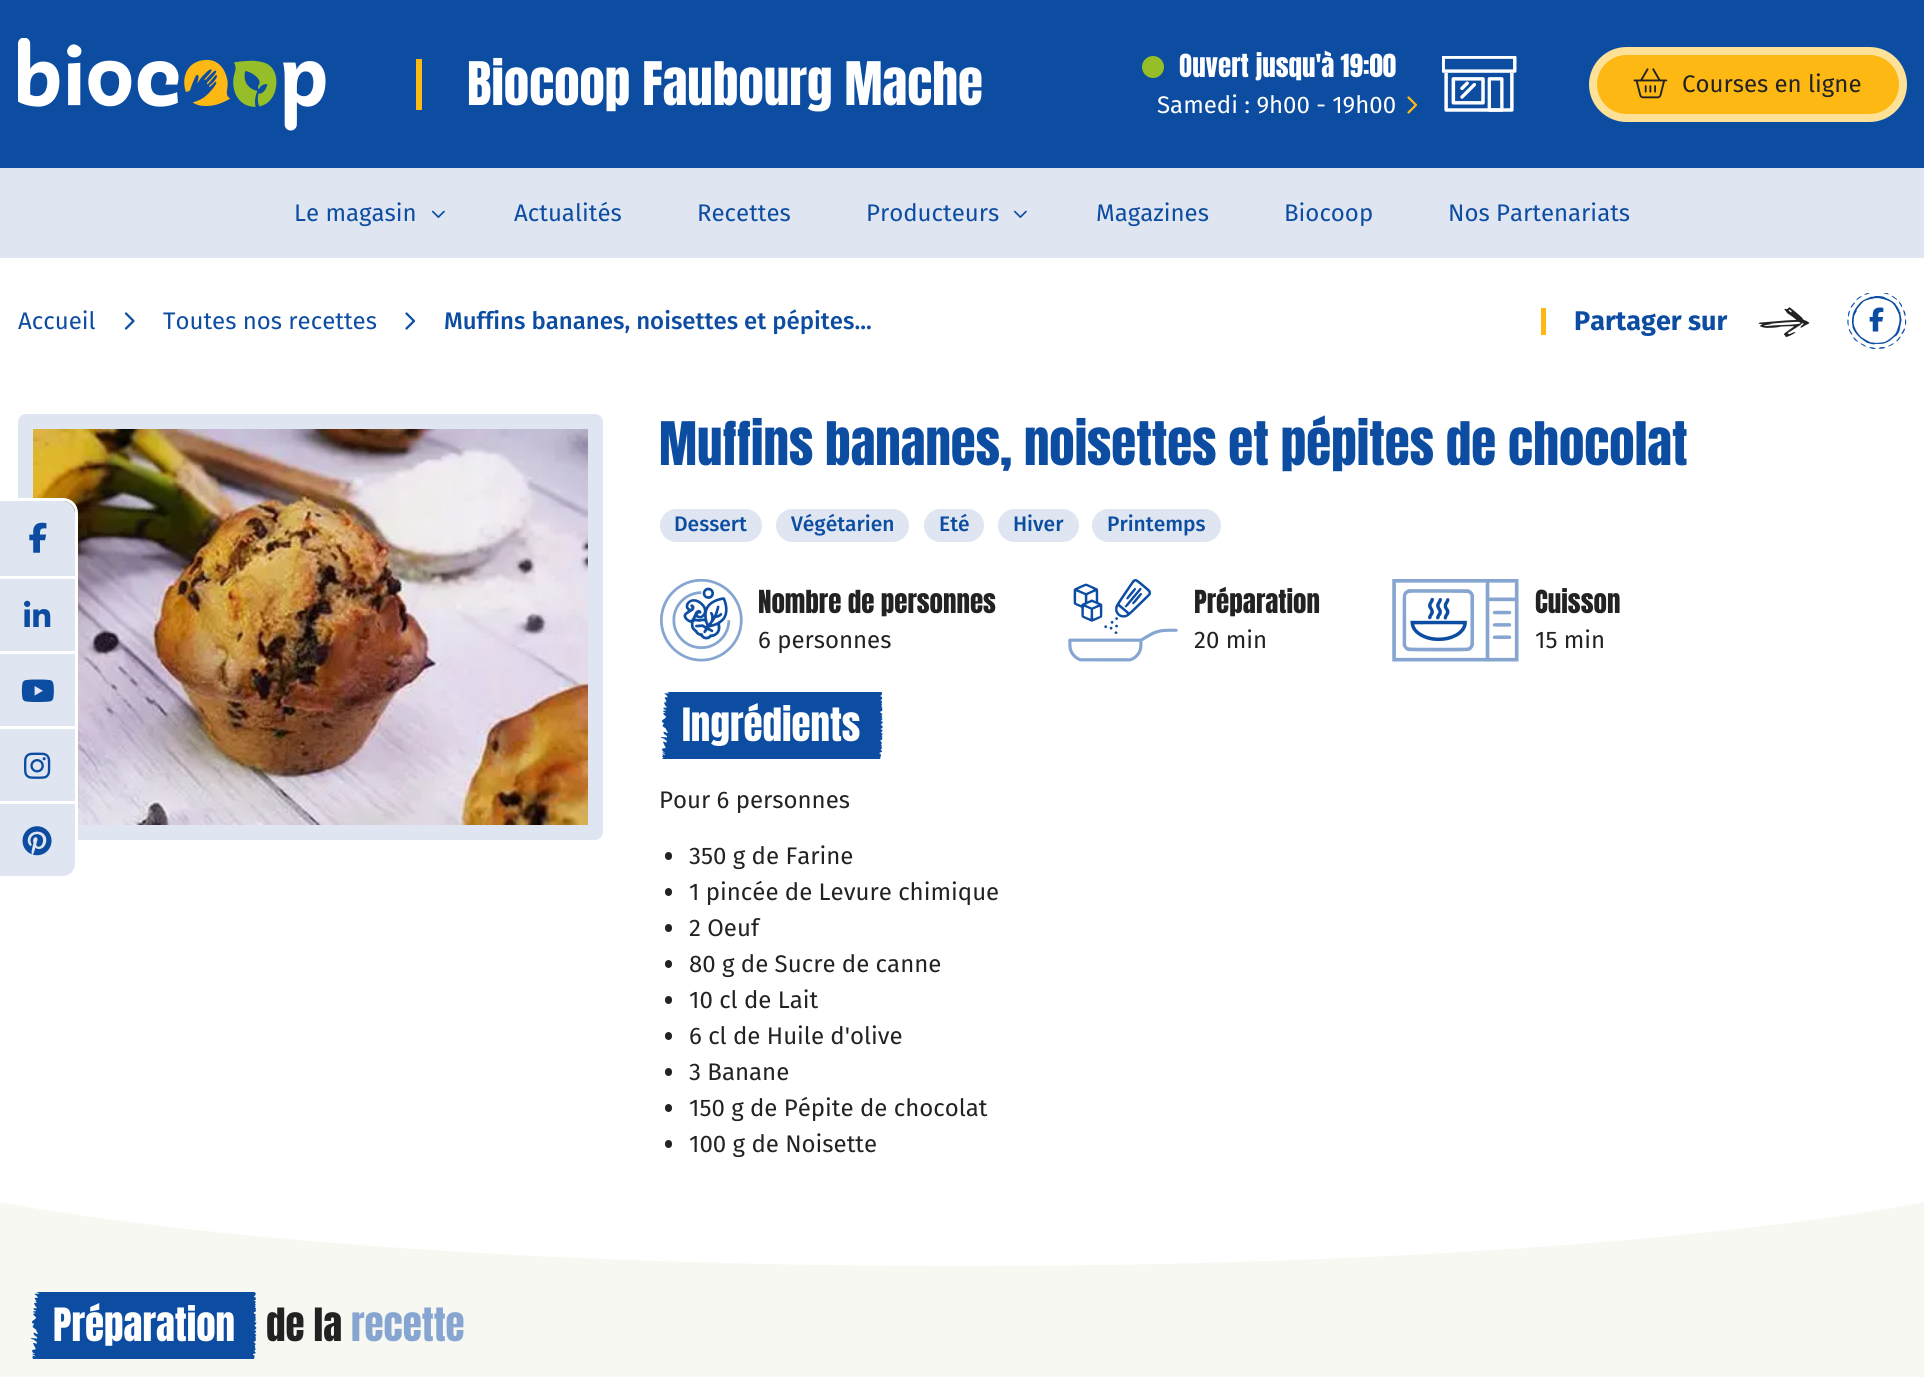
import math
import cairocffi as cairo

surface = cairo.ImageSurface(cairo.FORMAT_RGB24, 1924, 1377)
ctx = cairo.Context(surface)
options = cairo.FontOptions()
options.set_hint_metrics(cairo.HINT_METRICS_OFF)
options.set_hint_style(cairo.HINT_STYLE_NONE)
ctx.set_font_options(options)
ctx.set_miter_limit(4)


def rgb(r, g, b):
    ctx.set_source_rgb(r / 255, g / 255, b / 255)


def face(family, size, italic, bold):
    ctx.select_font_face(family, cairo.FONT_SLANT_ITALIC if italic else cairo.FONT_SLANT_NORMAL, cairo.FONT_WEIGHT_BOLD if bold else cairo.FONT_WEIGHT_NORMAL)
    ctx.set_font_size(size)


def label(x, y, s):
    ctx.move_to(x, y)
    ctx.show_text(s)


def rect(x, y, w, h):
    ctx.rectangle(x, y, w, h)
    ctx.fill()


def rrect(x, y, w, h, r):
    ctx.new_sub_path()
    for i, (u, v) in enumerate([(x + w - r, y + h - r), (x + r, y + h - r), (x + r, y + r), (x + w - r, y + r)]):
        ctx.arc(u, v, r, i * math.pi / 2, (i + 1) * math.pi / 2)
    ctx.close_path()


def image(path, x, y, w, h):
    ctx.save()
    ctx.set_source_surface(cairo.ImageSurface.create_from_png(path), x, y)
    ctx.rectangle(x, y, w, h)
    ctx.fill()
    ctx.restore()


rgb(255, 255, 255)
ctx.paint()
rgb(12, 77, 162)
rect(0, 0, 1924, 168)
image('image0.png', 18, 38, 308, 93)
rgb(253, 184, 19)
rect(416, 59, 6, 51)
face('Anton', 51, 0, 0)
rgb(255, 255, 255)
label(467, 105, 'Biocoop Faubourg Mache')
rgb(150, 190, 40)
ctx.new_path()
ctx.arc(1153, 67, 11, 0, 2 * math.pi)
ctx.fill()
face('Anton', 27, 0, 0)
rgb(255, 255, 255)
label(1179, 77, 'Ouvert jusqu\'à 19:00')
image('image1.png', 1442, 56, 75, 56)
face('Fira Sans', 24, 0, 0)
label(1157, 113, 'Samedi : 9h00 - 19h00')
image('image2.png', 1407, 96, 11, 18)
rgb(253, 184, 19)
rrect(1593, 51, 310, 67, 33.5)
ctx.fill_preserve()
rgb(252, 225, 151)
ctx.set_line_width(8)
ctx.stroke()
image('image3.png', 1633, 68, 35, 31)
rgb(34, 34, 34)
label(1682, 92, 'Courses en ligne')
rgb(223, 229, 241)
rect(0, 168, 1924, 90)
rgb(12, 77, 162)
label(294, 221, 'Le magasin')
image('image4.png', 431, 210, 14, 8)
label(514, 221, 'Actualités')
label(697, 221, 'Recettes')
label(866, 221, 'Producteurs')
image('image4.png', 1013, 210, 14, 8)
label(1096, 221, 'Magazines')
label(1284, 221, 'Biocoop')
label(1448, 221, 'Nos Partenariats')
label(18, 329, 'Accueil')
image('image5.png', 124, 312, 11, 18)
label(163, 329, 'Toutes nos recettes')
image('image6.png', 405, 312, 11, 18)
face('Fira Sans Medium', 24, 0, 0)
label(444, 329, 'Muffins bananes, noisettes et pépites...')
rgb(253, 184, 19)
rect(1541, 308, 5, 27)
face('Fira Sans', 27, 0, 1)
rgb(12, 77, 162)
label(1574, 330, 'Partager sur')
image('image7.png', 1758, 307, 52, 30)
image('image8.png', 1847, 293, 60, 57)
image('image9.png', 1869, 307, 15, 25)
rrect(25.5, 421.5, 570, 411, 0.5)
rgb(223, 229, 241)
ctx.set_line_width(15)
ctx.stroke()
image('image10.png', 33, 429, 555, 396)
face('Anton', 51, 0, 0)
rgb(12, 77, 162)
label(659, 465, 'Muffins bananes, noisettes et pépites de chocolat')
rgb(223, 229, 241)
rrect(660, 509, 102, 33, 16.5)
ctx.fill()
face('Fira Sans Medium', 21, 0, 0)
rgb(12, 77, 162)
label(674, 531, 'Dessert')
rgb(223, 229, 241)
rrect(776, 509, 133, 33, 16.5)
ctx.fill()
rgb(12, 77, 162)
label(791, 531, 'Végétarien')
rgb(223, 229, 241)
rrect(924, 509, 60, 33, 16.5)
ctx.fill()
rgb(12, 77, 162)
label(939, 531, 'Eté')
rgb(223, 229, 241)
rrect(998, 509, 81, 33, 16.5)
ctx.fill()
rgb(12, 77, 162)
label(1013, 531, 'Hiver')
rgb(223, 229, 241)
rrect(1092, 509, 129, 33, 16.5)
ctx.fill()
rgb(12, 77, 162)
label(1107, 531, 'Printemps')
image('image11.png', 660, 579, 83, 83)
face('Anton', 27, 0, 0)
rgb(34, 34, 34)
label(758, 613, 'Nombre de personnes')
face('Fira Sans', 24, 0, 0)
label(758, 648, '6 personnes')
image('image12.png', 1068, 579, 110, 83)
face('Anton', 27, 0, 0)
label(1194, 613, 'Préparation')
face('Fira Sans', 24, 0, 0)
label(1194, 648, '20 min')
image('image13.png', 1392, 579, 127, 83)
face('Anton', 27, 0, 0)
label(1535, 613, 'Cuisson')
face('Fira Sans', 24, 0, 0)
label(1535, 648, '15 min')
image('image14.png', 660, 692, 223, 67)
face('Anton', 39, 0, 0)
rgb(255, 255, 255)
label(682, 741, 'Ingrédients')
face('Fira Sans', 24, 0, 0)
rgb(34, 34, 34)
label(659, 808, 'Pour 6 personnes')
rrect(665, 852, 7, 8, 3.5)
ctx.fill()
label(689, 864, '350 g de Farine')
rrect(665, 888, 7, 8, 3.5)
ctx.fill()
label(689, 900, '1 pincée de Levure chimique')
rrect(665, 924, 7, 8, 3.5)
ctx.fill()
label(689, 936, '2 Oeuf')
rrect(665, 960, 7, 8, 3.5)
ctx.fill()
label(689, 972, '80 g de Sucre de canne')
rrect(665, 996, 7, 8, 3.5)
ctx.fill()
label(689, 1008, '10 cl de Lait')
rrect(665, 1032, 7, 8, 3.5)
ctx.fill()
label(689, 1044, '6 cl de Huile d\'olive')
rrect(665, 1068, 7, 8, 3.5)
ctx.fill()
label(689, 1080, '3 Banane')
rrect(665, 1104, 7, 8, 3.5)
ctx.fill()
label(689, 1116, '150 g de Pépite de chocolat')
rrect(665, 1140, 7, 8, 3.5)
ctx.fill()
label(689, 1152, '100 g de Noisette')
rgb(248, 248, 242)
rect(0, 1202, 1924, 175)
ctx.save()
ctx.rectangle(0, 1187, 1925, 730)
ctx.clip()
rgb(255, 255, 255)
ctx.new_path()
ctx.move_to(962.5, 981)
ctx.curve_to(1600, 981, 2116.5, 1045, 2116.5, 1123.5)
ctx.curve_to(2116.5, 1202, 1600, 1266, 962.5, 1266)
ctx.curve_to(325, 1266, -191.5, 1202, -191.5, 1123.5)
ctx.curve_to(-191.5, 1045, 325, 981, 962.5, 981)
ctx.close_path()
ctx.fill()
ctx.restore()
image('image15.png', 30, 1292, 227, 67)
face('Anton', 39, 0, 0)
rgb(255, 255, 255)
label(53, 1341, 'Préparation')
rgb(34, 34, 34)
label(266, 1341, 'de la')
rgb(134, 166, 209)
label(351, 1341, 'recette')
ctx.new_path()
ctx.move_to(-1.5, 499.5)
ctx.line_to(63, 499.5)
ctx.curve_to(70.5, 499.5, 76.5, 505.5, 76.5, 513)
ctx.line_to(76.5, 864)
ctx.curve_to(76.5, 871.5, 70.5, 877.5, 63, 877.5)
ctx.line_to(-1.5, 877.5)
ctx.close_path()
rgb(255, 255, 255)
ctx.set_line_width(3)
ctx.stroke()
rgb(223, 229, 241)
ctx.new_path()
ctx.move_to(0, 501)
ctx.line_to(63, 501)
ctx.curve_to(69.5, 501, 75, 506.5, 75, 513)
ctx.line_to(75, 576)
ctx.line_to(0, 576)
ctx.close_path()
ctx.fill()
image('image16.png', 29, 522, 18, 31)
rect(0, 579, 75, 72)
rgb(255, 255, 255)
rect(18, 576, 57, 3)
image('image17.png', 24, 600, 27, 27)
rgb(223, 229, 241)
rect(0, 654, 75, 72)
rgb(255, 255, 255)
rect(18, 651, 57, 3)
image('image18.png', 21, 679, 33, 23)
rgb(223, 229, 241)
rect(0, 729, 75, 72)
rgb(255, 255, 255)
rect(18, 726, 57, 3)
image('image19.png', 24, 752, 27, 27)
rgb(223, 229, 241)
ctx.new_path()
ctx.move_to(0, 804)
ctx.line_to(75, 804)
ctx.line_to(75, 864)
ctx.curve_to(75, 870.5, 69.5, 876, 63, 876)
ctx.line_to(0, 876)
ctx.close_path()
ctx.fill()
rgb(255, 255, 255)
rect(18, 801, 57, 3)
image('image20.png', 22, 826, 30, 30)
surface.write_to_png('render.png')
